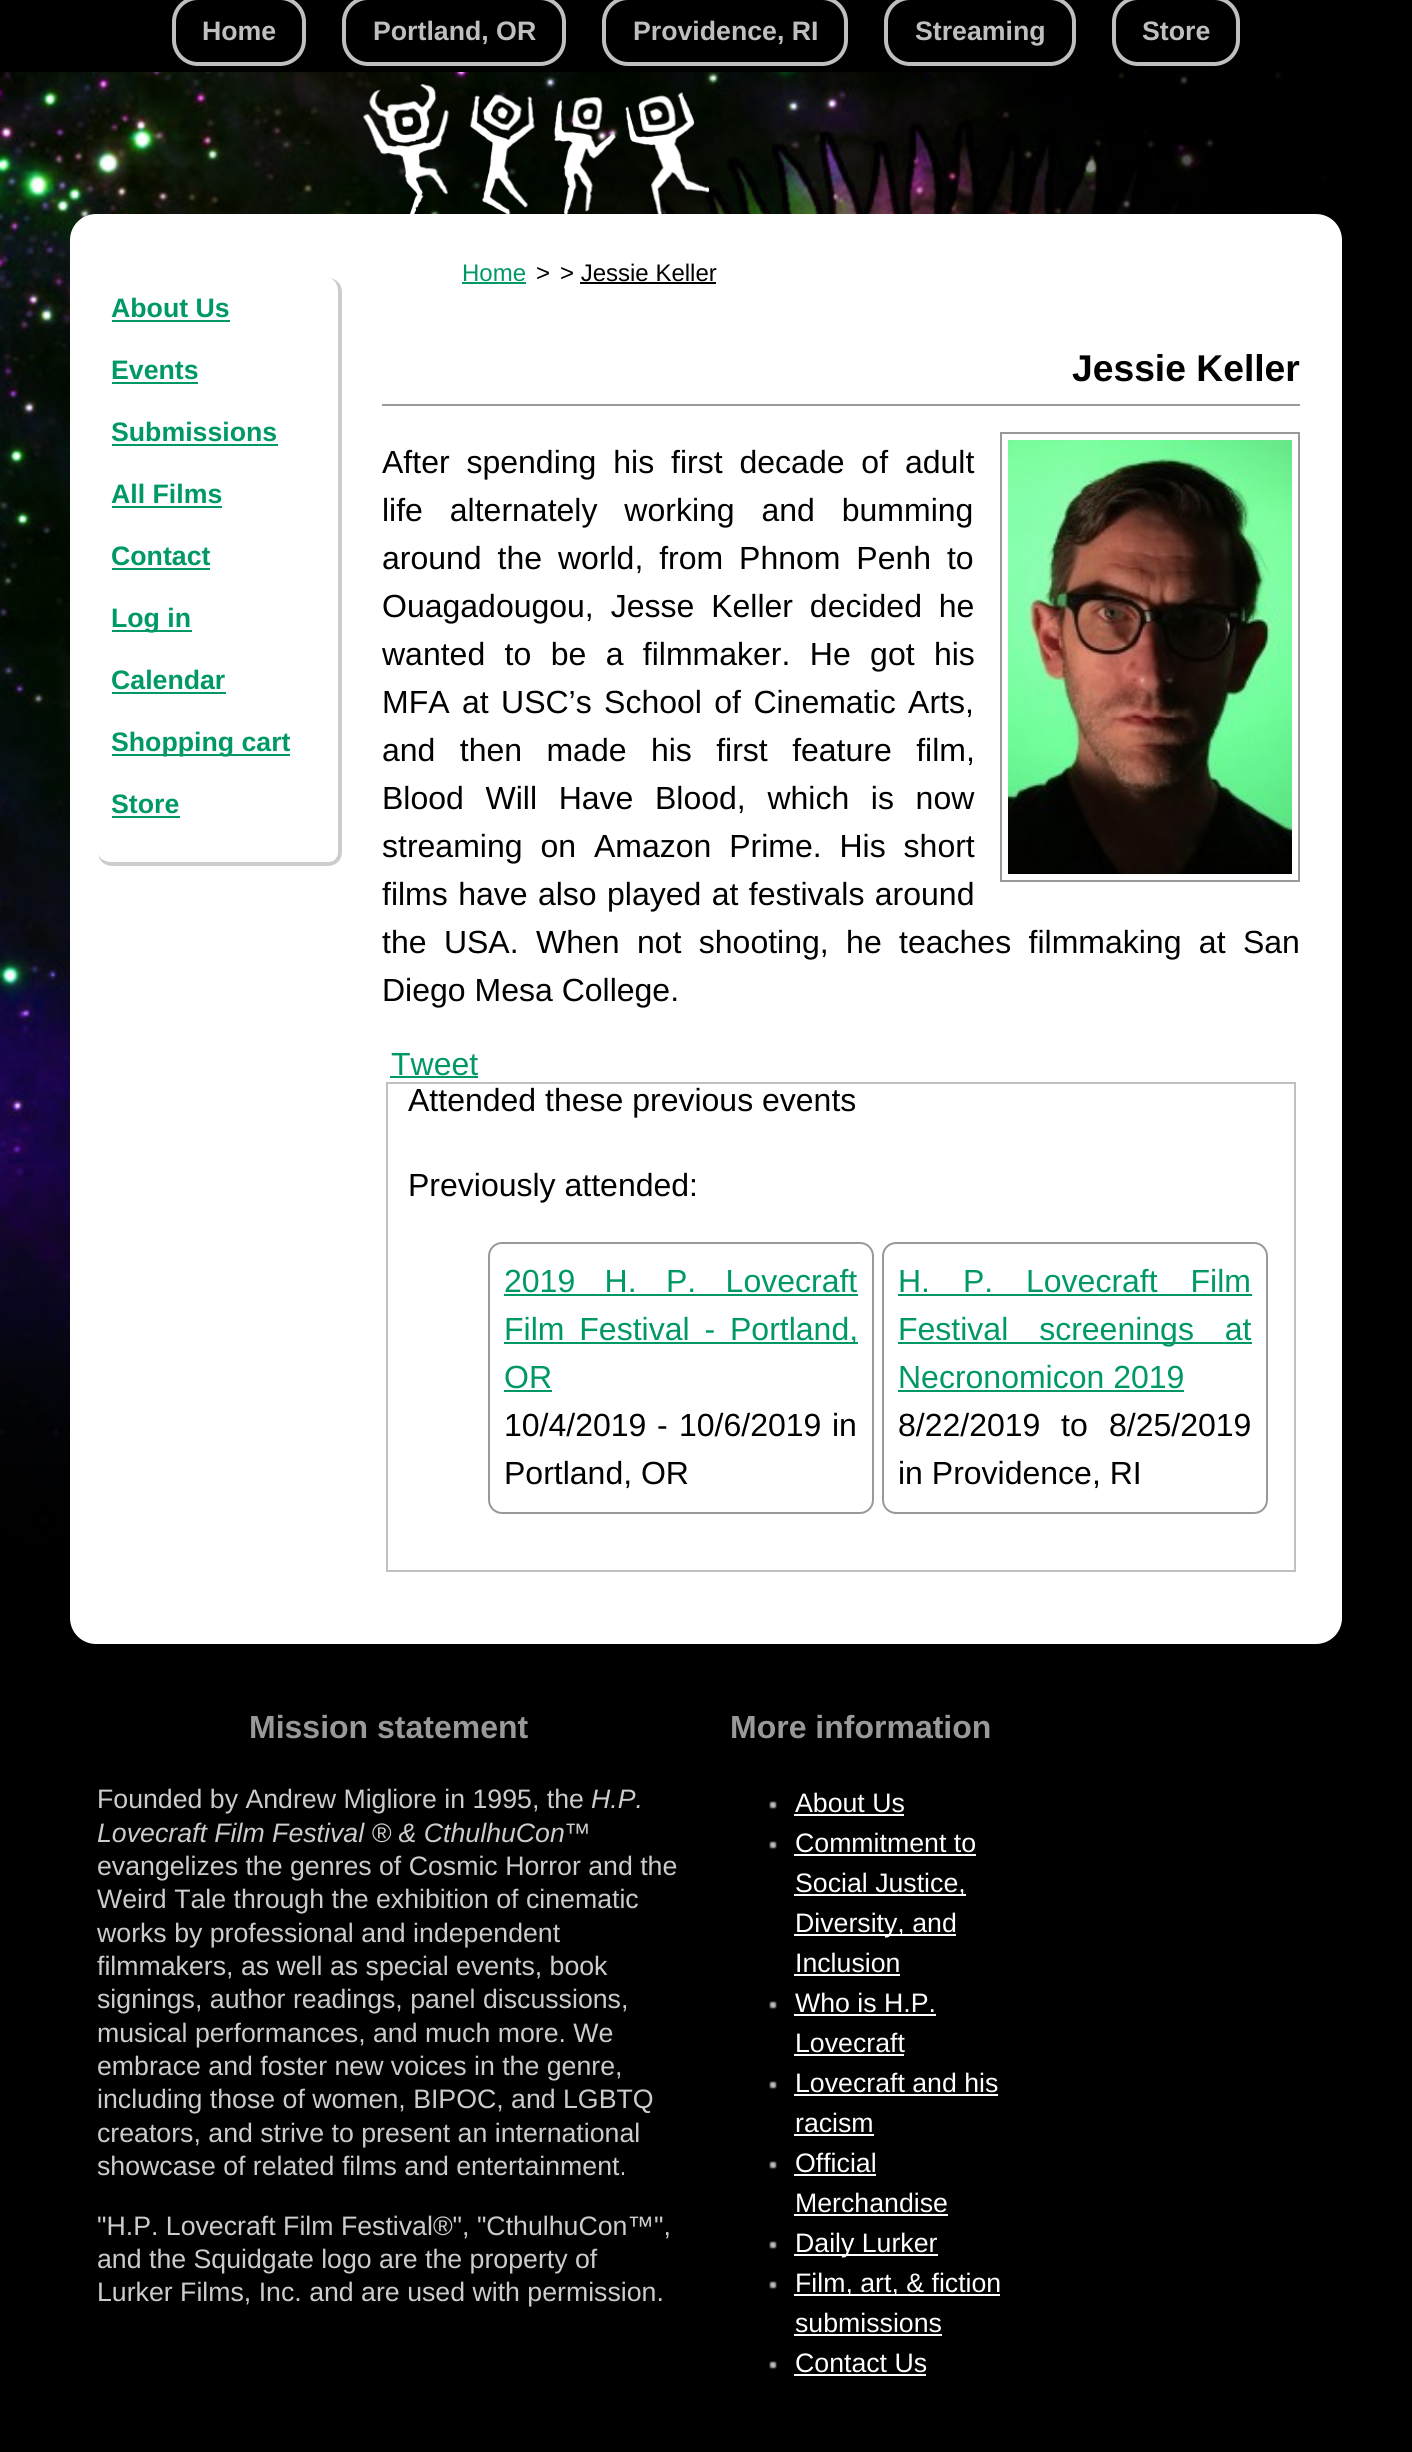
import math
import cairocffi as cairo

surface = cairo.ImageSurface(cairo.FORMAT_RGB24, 1412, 2452)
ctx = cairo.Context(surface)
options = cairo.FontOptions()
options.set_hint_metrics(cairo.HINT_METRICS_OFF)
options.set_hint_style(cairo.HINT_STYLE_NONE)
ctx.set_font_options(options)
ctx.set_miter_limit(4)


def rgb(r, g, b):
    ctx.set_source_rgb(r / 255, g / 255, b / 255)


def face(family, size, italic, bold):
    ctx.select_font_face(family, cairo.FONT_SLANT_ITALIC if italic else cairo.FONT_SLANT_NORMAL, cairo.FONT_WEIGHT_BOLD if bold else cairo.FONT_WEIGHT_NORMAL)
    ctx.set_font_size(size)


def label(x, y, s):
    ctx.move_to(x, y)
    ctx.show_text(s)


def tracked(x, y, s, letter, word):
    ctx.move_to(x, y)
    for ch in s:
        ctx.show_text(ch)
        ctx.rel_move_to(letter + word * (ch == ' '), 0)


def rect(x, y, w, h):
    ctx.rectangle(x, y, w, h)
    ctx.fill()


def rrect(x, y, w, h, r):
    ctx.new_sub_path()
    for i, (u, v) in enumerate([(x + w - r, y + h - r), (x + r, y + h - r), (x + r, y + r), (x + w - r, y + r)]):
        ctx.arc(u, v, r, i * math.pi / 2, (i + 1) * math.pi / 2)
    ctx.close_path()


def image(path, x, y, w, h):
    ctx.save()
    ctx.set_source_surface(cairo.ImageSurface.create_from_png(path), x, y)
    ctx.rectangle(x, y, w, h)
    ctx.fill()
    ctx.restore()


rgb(0, 0, 0)
ctx.paint()
image('image0.png', 0, 72, 1327, 1491)
rrect(174, -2, 130, 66, 24)
rgb(191, 191, 191)
ctx.set_line_width(4)
ctx.stroke()
face('Liberation Sans', 26.7, 0, 1)
label(202, 40, 'Home')
rrect(344, -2, 220, 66, 24)
ctx.stroke()
label(373, 40, 'Portland, OR')
rrect(604, -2, 242, 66, 24)
ctx.stroke()
label(633, 40, 'Providence, RI')
rrect(886, -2, 188, 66, 24)
ctx.stroke()
label(915, 40, 'Streaming')
rrect(1114, -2, 124, 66, 24)
ctx.stroke()
label(1142, 40, 'Store')
image('image1.png', 363, 84, 347, 130)
rgb(255, 255, 255)
rrect(70, 214, 1272, 1430, 26)
ctx.fill()
rgb(204, 204, 204)
ctx.set_fill_rule(cairo.FILL_RULE_EVEN_ODD)
ctx.new_path()
ctx.move_to(112, 278)
ctx.line_to(328, 278)
ctx.curve_to(336, 278, 342, 284, 342, 292)
ctx.line_to(342, 852)
ctx.curve_to(342, 860, 336, 866, 328, 866)
ctx.line_to(112, 866)
ctx.curve_to(104, 866, 98, 860, 98, 852)
ctx.line_to(98, 292)
ctx.curve_to(98, 284, 104, 278, 112, 278)
ctx.close_path()
ctx.move_to(112, 278)
ctx.line_to(328, 278)
ctx.curve_to(334, 278, 338, 284, 338, 292)
ctx.line_to(338, 852)
ctx.curve_to(338, 858, 334, 862, 328, 862)
ctx.line_to(112, 862)
ctx.curve_to(104, 862, 98, 858, 98, 852)
ctx.line_to(98, 292)
ctx.curve_to(98, 284, 104, 278, 112, 278)
ctx.close_path()
ctx.fill()
rgb(0, 153, 102)
label(111, 317, 'About Us')
rect(112, 320, 118, 2)
label(111, 379, 'Events')
rect(112, 382, 86, 2)
label(111, 441, 'Submissions')
rect(112, 444, 166, 2)
label(111, 503, 'All Films')
rect(112, 506, 110, 2)
label(111, 565, 'Contact')
rect(112, 568, 98, 2)
rect(112, 630, 80, 2)
label(111, 627, 'Log in')
label(111, 689, 'Calendar')
rect(112, 692, 114, 2)
rect(112, 754, 178, 2)
label(111, 751, 'Shopping cart')
label(111, 813, 'Store')
rect(112, 816, 68, 2)
face('Liberation Sans', 24, 0, 0)
label(462, 281, 'Home')
rect(462, 282, 64, 2)
rgb(0, 0, 0)
label(536, 281, '>')
label(560, 281, '> Jessie Keller')
rect(580, 282, 136, 2)
rgb(153, 153, 153)
rect(382, 404, 918, 2)
face('Liberation Sans', 37.25, 0, 1)
rgb(0, 0, 0)
label(1072, 381, 'Jessie Keller')
ctx.rectangle(1001, 433, 298, 448)
rgb(153, 153, 153)
ctx.set_line_width(2)
ctx.stroke()
image('image2.png', 1008, 440, 284, 434)
face('Liberation Sans', 32, 0, 0)
rgb(0, 0, 0)
tracked(382, 473, 'After spending his first decade of adult', 0, 8)
tracked(382, 521, 'life alternately working and bumming', 0, 18)
tracked(382, 569, 'around the world, from Phnom Penh to', 0, 7)
tracked(382, 617, 'Ouagadougou, Jesse Keller decided he', 0, 8)
tracked(382, 665, 'wanted to be a filmmaker. He got his', 0, 10.5)
tracked(382, 713, 'MFA at USC’s School of Cinematic Arts,', 0, 3.5)
tracked(382, 761, 'and then made his first feature film,', 0, 15.5)
tracked(382, 809, 'Blood Will Have Blood, which is now', 0, 12.75)
tracked(382, 857, 'streaming on Amazon Prime. His short', 0, 9)
tracked(382, 905, 'films have also played at festivals around', 0, 1.5)
tracked(382, 953, 'the USA. When not shooting, he teaches filmmaking at San', 0, 8.5)
label(382, 1001, 'Diego Mesa College.')
rgb(0, 153, 102)
label(391, 1075, 'Tweet')
rect(390, 1076, 88, 2)
ctx.rectangle(387, 1083, 908, 488)
rgb(192, 192, 192)
ctx.stroke()
rgb(0, 0, 0)
label(408, 1111, 'Attended these previous events')
label(408, 1196, 'Previously attended:')
rrect(489, 1243, 384, 270, 13)
rgb(153, 153, 153)
ctx.stroke()
rgb(0, 153, 102)
tracked(504, 1292, '2019 H. P. Lovecraft', 0, 20.5)
rect(504, 1294, 354, 2)
rect(504, 1342, 354, 2)
tracked(504, 1340, 'Film Festival - Portland,', 0, 6)
label(504, 1388, 'OR')
rect(504, 1390, 48, 2)
rgb(0, 0, 0)
label(504, 1436, '10/4/2019')
label(657, 1436, '-')
label(679, 1436, '10/6/2019')
label(832, 1436, 'in')
label(504, 1484, 'Portland, OR')
rrect(883, 1243, 384, 270, 13)
rgb(153, 153, 153)
ctx.stroke()
rgb(0, 153, 102)
tracked(898, 1292, 'H. P. Lovecraft Film', 0, 24)
rect(898, 1294, 354, 2)
rect(898, 1342, 354, 2)
tracked(898, 1340, 'Festival screenings at', 0, 22)
label(898, 1388, 'Necronomicon 2019')
rect(898, 1390, 286, 2)
rgb(0, 0, 0)
label(898, 1436, '8/22/2019')
label(1061, 1436, 'to')
label(1109, 1436, '8/25/2019')
label(898, 1484, 'in Providence, RI')
face('Liberation Sans', 32, 0, 1)
rgb(153, 153, 153)
label(249, 1738, 'Mission statement')
face('Liberation Sans', 26.7, 0, 0)
rgb(204, 204, 204)
label(97, 1808, 'Founded by Andrew Migliore in 1995, the')
face('Liberation Sans', 26.7, 1, 0)
label(591, 1808, 'H.P.')
label(97, 1842, 'Lovecraft Film Festival ® & CthulhuCon')
face('Liberation Sans', 26.7, 0, 0)
label(564, 1842, '™')
label(97, 1875, 'evangelizes the genres of Cosmic Horror and the')
label(97, 1908, 'Weird Tale through the exhibition of cinematic')
label(97, 1942, 'works by professional and independent')
label(97, 1975, 'filmmakers, as well as special events, book')
label(97, 2008, 'signings, author readings, panel discussions,')
label(97, 2042, 'musical performances, and much more. We')
label(97, 2075, 'embrace and foster new voices in the genre,')
label(97, 2108, 'including those of women, BIPOC, and LGBTQ')
label(97, 2142, 'creators, and strive to present an international')
label(97, 2175, 'showcase of related films and entertainment.')
label(97, 2235, '"H.P. Lovecraft Film Festival®", "CthulhuCon™",')
label(97, 2268, 'and the Squidgate logo are the property of')
label(97, 2301, 'Lurker Films, Inc. and are used with permission.')
face('Liberation Sans', 32, 0, 1)
rgb(153, 153, 153)
label(730, 1738, 'More information')
image('image3.png', 769, 1801, 8, 8)
face('Liberation Sans', 26.7, 0, 0)
rgb(255, 255, 255)
label(795, 1812, 'About Us')
rect(794, 1814, 110, 2)
image('image3.png', 769, 1841, 8, 8)
label(795, 1852, 'Commitment to')
rect(794, 1854, 182, 2)
rect(794, 1894, 172, 2)
label(795, 1892, 'Social Justice,')
rect(794, 1934, 162, 2)
label(795, 1932, 'Diversity, and')
label(795, 1972, 'Inclusion')
rect(794, 1974, 106, 2)
image('image3.png', 769, 2001, 8, 8)
label(795, 2012, 'Who is H.P.')
rect(794, 2014, 142, 2)
label(795, 2052, 'Lovecraft')
rect(794, 2054, 110, 2)
image('image3.png', 769, 2081, 8, 8)
label(795, 2092, 'Lovecraft and his')
rect(794, 2094, 204, 2)
label(795, 2132, 'racism')
rect(794, 2134, 80, 2)
image('image3.png', 769, 2161, 8, 8)
label(795, 2172, 'Official')
rect(794, 2174, 82, 2)
label(795, 2212, 'Merchandise')
rect(794, 2214, 154, 2)
image('image3.png', 769, 2241, 8, 8)
rect(794, 2254, 144, 2)
label(795, 2252, 'Daily Lurker')
image('image3.png', 769, 2281, 8, 8)
rect(794, 2294, 206, 2)
label(795, 2292, 'Film, art, & fiction')
label(795, 2332, 'submissions')
rect(794, 2334, 148, 2)
image('image3.png', 769, 2361, 8, 8)
label(795, 2372, 'Contact Us')
rect(794, 2374, 132, 2)
surface.write_to_png('render.png')
